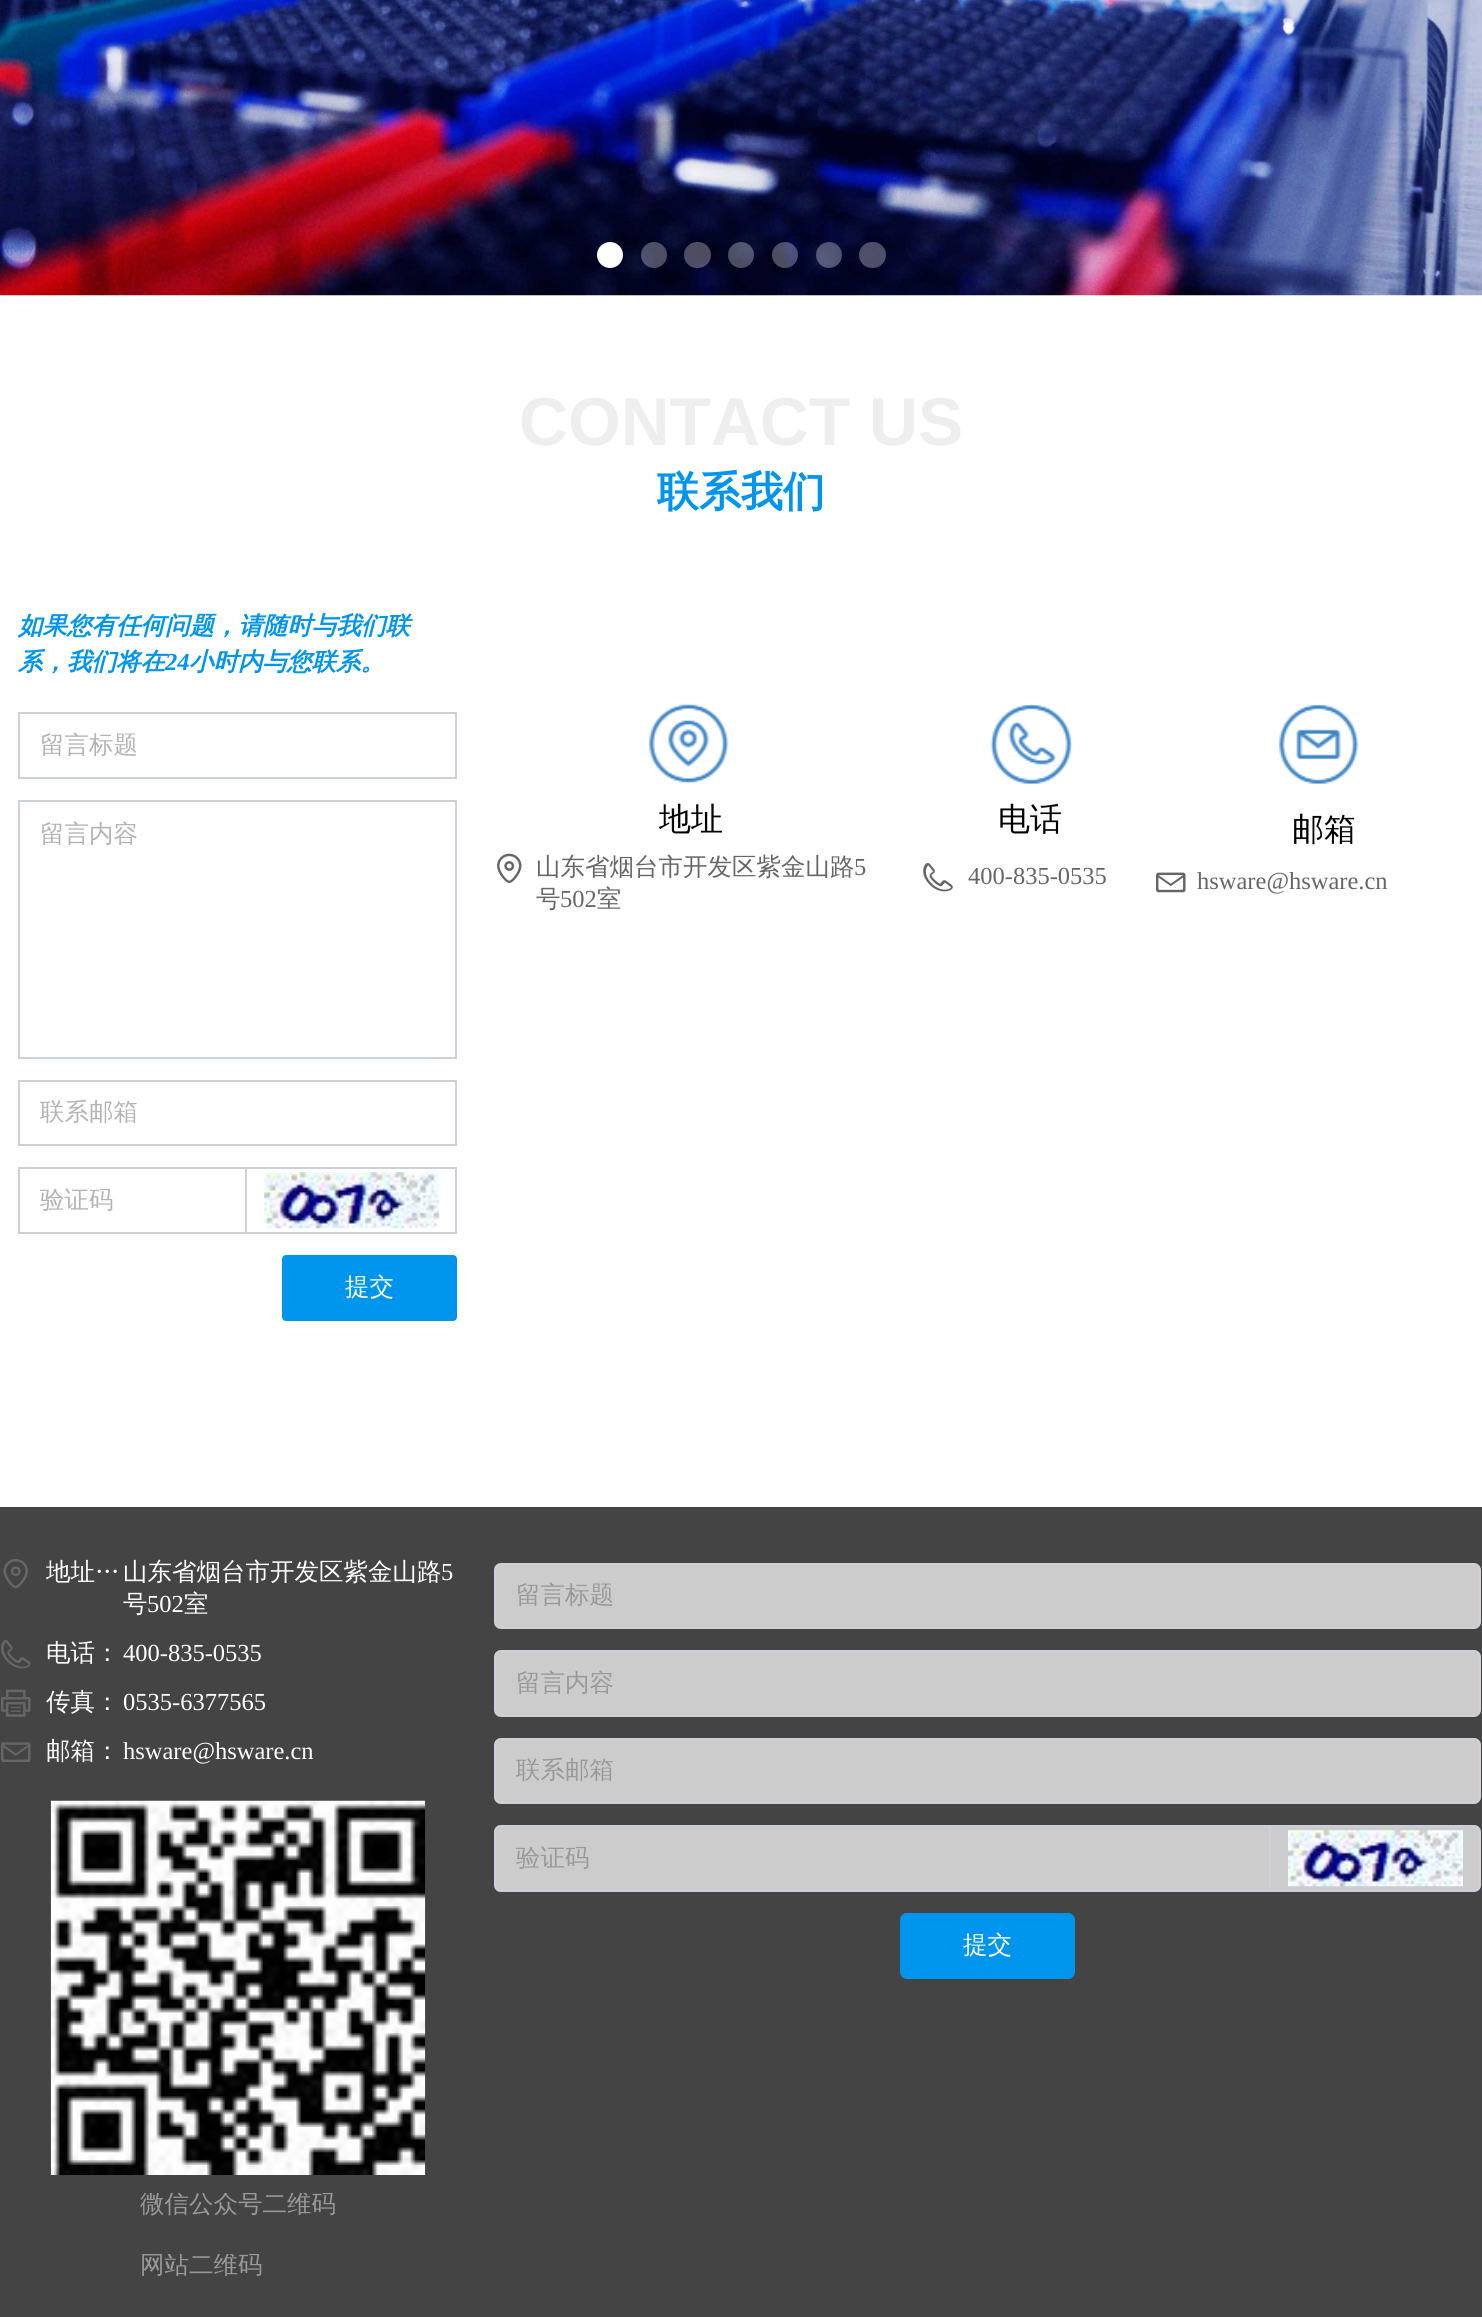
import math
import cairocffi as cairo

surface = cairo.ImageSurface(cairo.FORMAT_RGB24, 1482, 2317)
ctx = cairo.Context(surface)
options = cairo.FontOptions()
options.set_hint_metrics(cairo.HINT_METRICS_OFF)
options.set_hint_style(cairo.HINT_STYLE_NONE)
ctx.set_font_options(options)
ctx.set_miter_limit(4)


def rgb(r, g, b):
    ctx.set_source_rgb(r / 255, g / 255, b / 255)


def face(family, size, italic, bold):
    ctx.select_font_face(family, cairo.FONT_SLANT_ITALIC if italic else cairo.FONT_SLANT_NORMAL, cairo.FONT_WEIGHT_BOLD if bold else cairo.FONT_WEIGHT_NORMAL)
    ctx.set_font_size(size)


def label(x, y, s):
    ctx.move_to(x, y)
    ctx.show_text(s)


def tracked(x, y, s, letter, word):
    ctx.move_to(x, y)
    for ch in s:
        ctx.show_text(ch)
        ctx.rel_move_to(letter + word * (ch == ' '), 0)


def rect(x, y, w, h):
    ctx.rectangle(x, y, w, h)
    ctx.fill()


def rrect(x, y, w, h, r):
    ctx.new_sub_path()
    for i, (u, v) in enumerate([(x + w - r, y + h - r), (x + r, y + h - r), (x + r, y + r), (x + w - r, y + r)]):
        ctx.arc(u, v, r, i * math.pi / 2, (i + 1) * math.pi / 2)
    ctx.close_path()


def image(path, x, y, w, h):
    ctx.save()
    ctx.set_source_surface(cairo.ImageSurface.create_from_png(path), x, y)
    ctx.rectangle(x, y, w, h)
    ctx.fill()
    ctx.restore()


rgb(255, 255, 255)
ctx.paint()
image('image0.png', 0, 0, 1482, 296)
rgb(255, 255, 255)
ctx.arc(610, 255, 13, 0, 2 * math.pi)
ctx.fill()
ctx.set_source_rgba(1, 1, 1, 0.3)
ctx.arc(654, 255, 13, 0, 2 * math.pi)
ctx.fill()
rrect(684, 242, 27, 26, 13)
ctx.fill()
ctx.arc(741, 255, 13, 0, 2 * math.pi)
ctx.fill()
ctx.arc(785, 255, 13, 0, 2 * math.pi)
ctx.fill()
ctx.arc(829, 255, 13, 0, 2 * math.pi)
ctx.fill()
rrect(859, 242, 27, 26, 13)
ctx.fill()
face('Liberation Sans', 67.75, 0, 1)
rgb(238, 238, 238)
label(519, 445, 'CONTACT US')
face('WenQuanYi Zen Hei', 42, 0, 1)
rgb(0, 149, 237)
label(657, 506, '联系我们')
face('WenQuanYi Zen Hei', 24.5, 1, 1)
label(18, 634, '如果您有任何问题，请随时与我们联')
label(18, 670, '系，我们将在')
face('Liberation Serif', 24.5, 1, 1)
label(165, 670, '24')
face('WenQuanYi Zen Hei', 24.5, 1, 1)
label(189, 670, '小时内与您联系。')
ctx.rectangle(19, 713, 437, 65)
rgb(204, 209, 217)
ctx.stroke()
face('WenQuanYi Zen Hei Medium', 24.5, 0, 0)
rgb(179, 179, 179)
label(40, 753, '留言标题')
ctx.rectangle(19, 801, 437, 257)
rgb(204, 209, 217)
ctx.stroke()
rgb(179, 179, 179)
label(40, 842, '留言内容')
ctx.rectangle(19, 1081, 437, 64)
rgb(204, 209, 217)
ctx.stroke()
rgb(179, 179, 179)
label(40, 1120, '联系邮箱')
ctx.rectangle(19, 1168, 227, 65)
rgb(204, 209, 217)
ctx.stroke()
rgb(179, 179, 179)
label(40, 1208, '验证码')
ctx.rectangle(246, 1168, 210, 65)
rgb(204, 209, 217)
ctx.stroke()
image('image1.png', 264, 1172, 176, 57)
rgb(0, 149, 237)
rrect(283, 1256, 173, 64, 3)
ctx.fill_preserve()
ctx.stroke()
rgb(255, 255, 255)
label(345, 1295, '提交')
image('image2.png', 648, 704, 81, 79)
face('WenQuanYi Zen Hei Medium', 32, 0, 0)
rgb(0, 0, 0)
label(659, 830, '地址')
image('image3.png', 497, 853, 25, 31)
face('WenQuanYi Zen Hei Medium', 24.5, 0, 0)
rgb(102, 102, 102)
label(536, 875, '山东省烟台市开发区紫金山路')
face('Liberation Serif', 24.5, 0, 0)
label(854, 875, '5')
face('WenQuanYi Zen Hei Medium', 24.5, 0, 0)
label(536, 907, '号')
face('Liberation Serif', 24.5, 0, 0)
label(560, 907, '502')
face('WenQuanYi Zen Hei Medium', 24.5, 0, 0)
label(597, 907, '室')
image('image4.png', 990, 704, 83, 80)
face('WenQuanYi Zen Hei Medium', 32, 0, 0)
rgb(0, 0, 0)
label(998, 830, '电话')
image('image5.png', 923, 863, 30, 29)
face('Liberation Serif', 24.5, 0, 0)
rgb(102, 102, 102)
label(968, 884, '400-835-0535')
image('image6.png', 1278, 704, 81, 80)
face('WenQuanYi Zen Hei Medium', 32, 0, 0)
rgb(0, 0, 0)
label(1292, 840, '邮箱')
image('image7.png', 1156, 872, 30, 21)
face('Liberation Serif', 24.5, 0, 0)
rgb(102, 102, 102)
label(1197, 889, 'hsware@hsware.cn')
rgb(68, 68, 68)
rect(0, 1507, 1482, 810)
image('image8.png', 3, 1559, 25, 30)
face('WenQuanYi Zen Hei Medium', 24.5, 0, 0)
rgb(255, 255, 255)
tracked(46, 1580, '地址…', 0, -1)
label(123, 1580, '山东省烟台市开发区紫金山路')
face('Liberation Serif', 24.5, 0, 0)
label(441, 1580, '5')
face('WenQuanYi Zen Hei Medium', 24.5, 0, 0)
label(123, 1612, '号')
face('Liberation Serif', 24.5, 0, 0)
label(147, 1612, '502')
face('WenQuanYi Zen Hei Medium', 24.5, 0, 0)
label(184, 1612, '室')
image('image9.png', 1, 1640, 30, 29)
label(46, 1661, '电话：')
face('Liberation Serif', 24.5, 0, 0)
label(123, 1661, '400-835-0535')
image('image10.png', 1, 1689, 30, 28)
face('WenQuanYi Zen Hei Medium', 24.5, 0, 0)
label(46, 1710, '传真：')
face('Liberation Serif', 24.5, 0, 0)
label(123, 1710, '0535-6377565')
image('image11.png', 1, 1742, 30, 20)
face('WenQuanYi Zen Hei Medium', 24.5, 0, 0)
label(46, 1759, '邮箱：')
face('Liberation Serif', 24.5, 0, 0)
label(123, 1759, 'hsware@hsware.cn')
image('image12.png', 50, 1800, 376, 375)
ctx.save()
ctx.rectangle(51, 2193, 374, 47)
ctx.clip()
face('WenQuanYi Zen Hei Medium', 24.5, 0, 0)
rgb(153, 153, 153)
label(140, 2212, '微信公众号二维码')
ctx.restore()
ctx.save()
ctx.rectangle(116, 2254, 171, 47)
ctx.clip()
face('WenQuanYi Zen Hei Medium', 24.5, 0, 0)
rgb(153, 153, 153)
label(140, 2273, '网站二维码')
ctx.restore()
rgb(204, 204, 204)
rrect(495, 1564, 985, 64, 6)
ctx.fill_preserve()
rgb(204, 209, 217)
ctx.stroke()
face('WenQuanYi Zen Hei Medium', 24.5, 0, 0)
rgb(153, 153, 153)
label(516, 1603, '留言标题')
rgb(204, 204, 204)
rrect(495, 1651, 985, 65, 6)
ctx.fill_preserve()
rgb(204, 209, 217)
ctx.stroke()
rgb(153, 153, 153)
label(516, 1691, '留言内容')
rgb(204, 204, 204)
rrect(495, 1739, 985, 64, 6)
ctx.fill_preserve()
rgb(204, 209, 217)
ctx.stroke()
rgb(153, 153, 153)
label(516, 1778, '联系邮箱')
rgb(204, 204, 204)
ctx.new_path()
ctx.move_to(501, 1826)
ctx.line_to(1270, 1826)
ctx.line_to(1270, 1891)
ctx.line_to(501, 1891)
ctx.curve_to(497.5, 1891, 495, 1888.5, 495, 1885)
ctx.line_to(495, 1832)
ctx.curve_to(495, 1828.5, 497.5, 1826, 501, 1826)
ctx.close_path()
ctx.fill_preserve()
rgb(204, 209, 217)
ctx.stroke()
rgb(153, 153, 153)
label(516, 1866, '验证码')
rgb(204, 204, 204)
ctx.new_path()
ctx.move_to(1270, 1826)
ctx.line_to(1474, 1826)
ctx.curve_to(1477.5, 1826, 1480, 1828.5, 1480, 1832)
ctx.line_to(1480, 1885)
ctx.curve_to(1480, 1888.5, 1477.5, 1891, 1474, 1891)
ctx.line_to(1270, 1891)
ctx.close_path()
ctx.fill_preserve()
rgb(204, 209, 217)
ctx.stroke()
image('image13.png', 1288, 1830, 175, 57)
rgb(0, 149, 237)
rrect(901, 1914, 173, 64, 6)
ctx.fill_preserve()
ctx.stroke()
rgb(255, 255, 255)
label(963, 1953, '提交')
surface.write_to_png('render.png')
